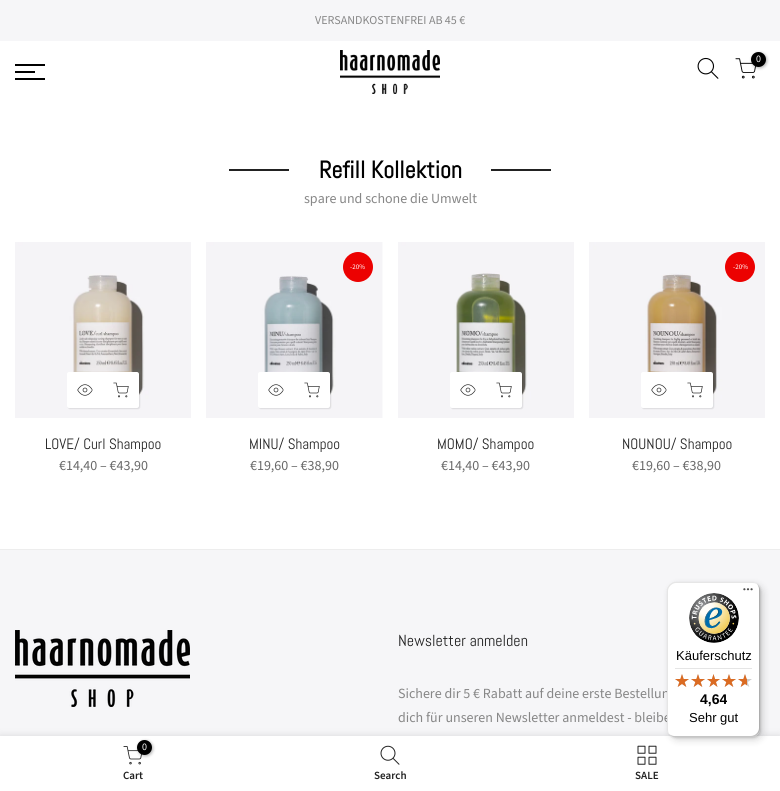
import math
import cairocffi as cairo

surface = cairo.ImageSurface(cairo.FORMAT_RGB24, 780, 791)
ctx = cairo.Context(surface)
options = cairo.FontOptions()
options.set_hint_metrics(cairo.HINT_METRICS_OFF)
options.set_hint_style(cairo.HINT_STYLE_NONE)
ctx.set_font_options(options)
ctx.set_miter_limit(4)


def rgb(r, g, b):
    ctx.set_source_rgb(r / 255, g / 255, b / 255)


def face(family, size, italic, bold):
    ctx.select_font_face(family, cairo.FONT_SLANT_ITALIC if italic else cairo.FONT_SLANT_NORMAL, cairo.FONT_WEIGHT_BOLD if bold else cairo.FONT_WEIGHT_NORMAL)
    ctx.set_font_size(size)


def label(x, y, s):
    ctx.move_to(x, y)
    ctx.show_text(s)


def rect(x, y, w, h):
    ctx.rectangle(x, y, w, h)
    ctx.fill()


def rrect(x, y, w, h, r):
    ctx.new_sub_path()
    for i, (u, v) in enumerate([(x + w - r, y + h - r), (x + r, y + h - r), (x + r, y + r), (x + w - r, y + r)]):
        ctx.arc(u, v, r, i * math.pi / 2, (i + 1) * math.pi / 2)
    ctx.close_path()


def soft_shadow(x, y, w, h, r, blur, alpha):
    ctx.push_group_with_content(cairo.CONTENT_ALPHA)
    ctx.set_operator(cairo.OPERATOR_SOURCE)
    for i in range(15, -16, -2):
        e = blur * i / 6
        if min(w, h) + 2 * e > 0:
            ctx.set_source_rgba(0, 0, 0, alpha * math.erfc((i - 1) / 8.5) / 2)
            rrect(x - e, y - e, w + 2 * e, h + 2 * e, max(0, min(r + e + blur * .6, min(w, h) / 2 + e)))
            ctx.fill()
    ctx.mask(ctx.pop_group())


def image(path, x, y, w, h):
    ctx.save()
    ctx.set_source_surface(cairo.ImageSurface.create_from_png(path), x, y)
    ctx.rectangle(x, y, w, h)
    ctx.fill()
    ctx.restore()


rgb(255, 255, 255)
ctx.paint()
rgb(246, 246, 248)
rect(0, 0, 780, 41)
face('Source Sans Pro', 12, 0, 0)
rgb(135, 135, 135)
label(315, 24, 'VERSANDKOSTENFREI AB 45 €')
image('image0.png', 340, 50, 100, 44)
image('image1.png', 697, 57, 22, 22)
image('image2.png', 735, 58, 21, 21)
rgb(0, 0, 0)
soft_shadow(752, 53, 15, 15, 7.5, 1.5, 0.3)
rgb(0, 0, 0)
ctx.arc(758.5, 59.5, 7.5, 0, 2 * math.pi)
ctx.fill()
face('Source Sans Pro', 10, 0, 0)
rgb(255, 255, 255)
label(756, 62, '0')
rgb(0, 0, 0)
rect(15, 64, 30, 2)
rect(15, 71, 20, 2)
rect(15, 78, 30, 2)
rgb(34, 34, 34)
rect(229, 169, 60, 2)
face('Abel', 24, 0, 1)
rgb(0, 0, 0)
label(319, 178, 'Refill Kollektion')
rgb(34, 34, 34)
rect(491, 169, 60, 2)
face('Source Sans Pro', 14, 0, 0)
rgb(135, 135, 135)
label(304, 203, 'spare und schone die Umwelt')
image('image3.png', 15, 242, 176, 176)
rgb(0, 0, 0)
soft_shadow(68, 373, 72, 36, 2, 0.5, 0.1)
rgb(255, 255, 255)
ctx.new_path()
ctx.move_to(69, 372)
ctx.line_to(103, 372)
ctx.line_to(103, 408)
ctx.line_to(69, 408)
ctx.curve_to(68, 408, 67, 407, 67, 406)
ctx.line_to(67, 374)
ctx.curve_to(67, 373, 68, 372, 69, 372)
ctx.close_path()
ctx.fill()
image('image4.png', 77, 384, 16, 12)
ctx.new_path()
ctx.move_to(79, 384)
ctx.curve_to(81, 382, 84, 381, 86.5, 381.5)
ctx.curve_to(96.5, 383.5, 95, 398.5, 85, 398.5)
ctx.curve_to(83, 398.5, 80.5, 397.5, 79, 396)
ctx.set_line_width(1)
ctx.stroke()
ctx.new_path()
ctx.move_to(103, 372)
ctx.line_to(137, 372)
ctx.curve_to(138, 372, 139, 373, 139, 374)
ctx.line_to(139, 406)
ctx.curve_to(139, 407, 138, 408, 137, 408)
ctx.line_to(103, 408)
ctx.close_path()
ctx.fill()
image('image5.png', 113, 382, 16, 16)
ctx.new_path()
ctx.move_to(115, 396)
ctx.curve_to(111.5, 392.5, 111.5, 387.5, 115, 384)
ctx.stroke()
face('Abel', 15, 0, 0)
rgb(34, 34, 34)
label(45, 449, 'LOVE/ Curl Shampoo')
face('Source Sans Pro', 14, 0, 0)
rgb(105, 105, 105)
label(59, 470, '€14,40 – €43,90')
image('image6.png', 206, 242, 177, 176)
rgb(236, 1, 1)
ctx.arc(358, 267, 15, 0, 2 * math.pi)
ctx.fill()
face('Source Sans Pro', 7, 0, 0)
rgb(255, 255, 255)
label(350, 269, '-20%')
rgb(0, 0, 0)
soft_shadow(259, 373, 72, 36, 2, 0.5, 0.1)
rgb(255, 255, 255)
ctx.new_path()
ctx.move_to(260, 372)
ctx.line_to(294, 372)
ctx.line_to(294, 408)
ctx.line_to(260, 408)
ctx.curve_to(259, 408, 258, 407, 258, 406)
ctx.line_to(258, 374)
ctx.curve_to(258, 373, 259, 372, 260, 372)
ctx.close_path()
ctx.fill()
image('image4.png', 268, 384, 16, 12)
ctx.new_path()
ctx.move_to(270, 384)
ctx.curve_to(272, 382, 275, 381, 277.5, 381.5)
ctx.curve_to(287.5, 383.5, 286, 398.5, 276, 398.5)
ctx.curve_to(274, 398.5, 271.5, 397.5, 270, 396)
ctx.stroke()
ctx.new_path()
ctx.move_to(294, 372)
ctx.line_to(328, 372)
ctx.curve_to(329, 372, 330, 373, 330, 374)
ctx.line_to(330, 406)
ctx.curve_to(330, 407, 329, 408, 328, 408)
ctx.line_to(294, 408)
ctx.close_path()
ctx.fill()
image('image5.png', 304, 382, 16, 16)
ctx.new_path()
ctx.move_to(306, 396)
ctx.curve_to(302.5, 392.5, 302.5, 387.5, 306, 384)
ctx.stroke()
face('Abel', 15, 0, 0)
rgb(34, 34, 34)
label(249, 449, 'MINU/ Shampoo')
face('Source Sans Pro', 14, 0, 0)
rgb(105, 105, 105)
label(250, 470, '€19,60 – €38,90')
image('image7.png', 398, 242, 176, 176)
rgb(0, 0, 0)
soft_shadow(451, 373, 72, 36, 2, 0.5, 0.1)
rgb(255, 255, 255)
ctx.new_path()
ctx.move_to(452, 372)
ctx.line_to(486, 372)
ctx.line_to(486, 408)
ctx.line_to(452, 408)
ctx.curve_to(451, 408, 450, 407, 450, 406)
ctx.line_to(450, 374)
ctx.curve_to(450, 373, 451, 372, 452, 372)
ctx.close_path()
ctx.fill()
image('image4.png', 460, 384, 16, 12)
ctx.new_path()
ctx.move_to(462, 384)
ctx.curve_to(464, 382, 467, 381, 469.5, 381.5)
ctx.curve_to(479.5, 383.5, 478, 398.5, 468, 398.5)
ctx.curve_to(466, 398.5, 463.5, 397.5, 462, 396)
ctx.stroke()
ctx.new_path()
ctx.move_to(486, 372)
ctx.line_to(520, 372)
ctx.curve_to(521, 372, 522, 373, 522, 374)
ctx.line_to(522, 406)
ctx.curve_to(522, 407, 521, 408, 520, 408)
ctx.line_to(486, 408)
ctx.close_path()
ctx.fill()
image('image5.png', 496, 382, 16, 16)
ctx.new_path()
ctx.move_to(498, 396)
ctx.curve_to(494.5, 392.5, 494.5, 387.5, 498, 384)
ctx.stroke()
face('Abel', 15, 0, 0)
rgb(34, 34, 34)
label(437, 449, 'MOMO/ Shampoo')
face('Source Sans Pro', 14, 0, 0)
rgb(105, 105, 105)
label(441, 470, '€14,40 – €43,90')
image('image8.png', 589, 242, 176, 176)
rgb(236, 1, 1)
ctx.arc(740, 267, 15, 0, 2 * math.pi)
ctx.fill()
face('Source Sans Pro', 7, 0, 0)
rgb(255, 255, 255)
label(733, 269, '-20%')
rgb(0, 0, 0)
soft_shadow(642, 373, 72, 36, 2, 0.5, 0.1)
rgb(255, 255, 255)
ctx.new_path()
ctx.move_to(643, 372)
ctx.line_to(677, 372)
ctx.line_to(677, 408)
ctx.line_to(643, 408)
ctx.curve_to(642, 408, 641, 407, 641, 406)
ctx.line_to(641, 374)
ctx.curve_to(641, 373, 642, 372, 643, 372)
ctx.close_path()
ctx.fill()
image('image4.png', 651, 384, 16, 12)
ctx.new_path()
ctx.move_to(653, 384)
ctx.curve_to(654.5, 382.5, 657, 381.5, 659, 381.5)
ctx.curve_to(669, 381.5, 670.5, 396.5, 660.5, 398.5)
ctx.curve_to(658, 399, 655, 398, 653, 396)
ctx.stroke()
ctx.new_path()
ctx.move_to(677, 372)
ctx.line_to(711, 372)
ctx.curve_to(712, 372, 713, 373, 713, 374)
ctx.line_to(713, 406)
ctx.curve_to(713, 407, 712, 408, 711, 408)
ctx.line_to(677, 408)
ctx.close_path()
ctx.fill()
image('image5.png', 687, 382, 16, 16)
ctx.new_path()
ctx.move_to(689, 396)
ctx.curve_to(685.5, 392.5, 685.5, 387.5, 689, 384)
ctx.stroke()
face('Abel', 15, 0, 0)
rgb(34, 34, 34)
label(622, 449, 'NOUNOU/ Shampoo')
face('Source Sans Pro', 14, 0, 0)
rgb(105, 105, 105)
label(632, 470, '€19,60 – €38,90')
rgb(246, 246, 248)
rect(0, 550, 780, 186)
rgb(237, 237, 237)
rect(0, 549, 780, 1)
image('image9.png', 15, 630, 175, 77)
face('Abel', 16, 0, 0)
rgb(34, 34, 34)
label(398, 646, 'Newsletter anmelden')
face('Source Sans Pro', 14, 0, 0)
rgb(135, 135, 135)
label(398, 698, 'Sichere dir 5 € Rabatt auf deine erste Bestellun')
label(398, 722, 'dich für unseren Newsletter anmeldest - bleibe')
rgb(0, 0, 0)
soft_shadow(0, 736, 780, 55, 0, 4.5, 0.12)
rgb(255, 255, 255)
rect(0, 736, 780, 55)
rgb(0, 0, 0)
soft_shadow(670, 585, 93, 155, 8, 4, 0.15)
soft_shadow(668, 583, 93, 155, 8, 1, 0.15)
rgb(255, 255, 255)
rrect(667, 582, 93, 155, 8)
ctx.fill()
ctx.set_source_rgba(0, 0, 0, 0.1)
ctx.new_path()
ctx.move_to(676, 583)
ctx.line_to(753, 583)
ctx.curve_to(755, 583, 757, 584, 759, 586)
ctx.curve_to(757, 584, 755, 582, 752, 582)
ctx.line_to(675, 582)
ctx.curve_to(671, 582, 667, 586, 667, 590)
ctx.line_to(667, 729)
ctx.curve_to(667, 732, 669, 734, 671, 736)
ctx.curve_to(669, 734, 668, 732, 668, 730)
ctx.line_to(668, 591)
ctx.curve_to(668, 587, 672, 583, 676, 583)
ctx.close_path()
ctx.fill()
ctx.set_source_rgba(0, 0, 0, 0.2)
ctx.new_path()
ctx.move_to(668, 733)
ctx.curve_to(670, 735, 672, 737, 675, 737)
ctx.line_to(752, 737)
ctx.curve_to(756, 737, 760, 733, 760, 729)
ctx.line_to(760, 590)
ctx.curve_to(760, 587, 758, 585, 756, 583)
ctx.curve_to(758, 585, 759, 587, 759, 589)
ctx.line_to(759, 728)
ctx.curve_to(759, 732, 755, 736, 751, 736)
ctx.line_to(674, 736)
ctx.curve_to(672, 736, 670, 735, 668, 733)
ctx.close_path()
ctx.fill()
ctx.set_source_rgba(0.196, 0.196, 0.196, 0.2)
ctx.new_path()
ctx.move_to(669, 734)
ctx.curve_to(670, 736, 673, 737, 675, 737)
ctx.line_to(752, 737)
ctx.curve_to(756, 737, 760, 733, 760, 729)
ctx.line_to(760, 590)
ctx.curve_to(760, 588, 759, 585, 757, 584)
ctx.curve_to(758, 585, 759, 587, 759, 589)
ctx.line_to(759, 728)
ctx.curve_to(759, 733, 756, 736, 751, 736)
ctx.line_to(674, 736)
ctx.curve_to(672, 736, 670, 735, 669, 734)
ctx.close_path()
ctx.fill()
image('image10.png', 743, 588, 10, 3)
ctx.set_source_rgba(1, 1, 1, 0.3)
ctx.new_path()
ctx.move_to(669, 734)
ctx.curve_to(670, 736, 673, 737, 675, 737)
ctx.line_to(752, 737)
ctx.curve_to(756, 737, 760, 733, 760, 729)
ctx.line_to(760, 728)
ctx.curve_to(760, 733, 756, 736, 752, 736)
ctx.line_to(674, 736)
ctx.curve_to(672, 736, 670, 735, 669, 734)
ctx.close_path()
ctx.fill()
image('image11.png', 689, 593, 50, 50)
face('Liberation Sans', 13, 0, 0)
rgb(0, 0, 0)
label(676, 660, 'Käuferschutz')
rgb(229, 229, 229)
rect(675, 668, 77, 1)
image('image12.png', 675, 674, 14, 13)
image('image12.png', 691, 674, 14, 13)
image('image13.png', 707, 674, 13, 13)
image('image12.png', 722, 674, 14, 13)
image('image12.png', 738, 674, 14, 13)
image('image14.png', 675, 674, 14, 13)
image('image14.png', 691, 674, 14, 13)
image('image15.png', 707, 674, 13, 13)
image('image14.png', 722, 674, 14, 13)
image('image16.png', 738, 674, 9, 13)
face('Liberation Sans', 14, 0, 1)
rgb(0, 0, 0)
label(700, 704, '4,64')
face('Liberation Sans', 13, 0, 0)
label(689, 722, 'Sehr gut')
image('image17.png', 123, 746, 19, 19)
rgb(0, 0, 0)
soft_shadow(138, 741, 15, 15, 7.5, 1.5, 0.3)
rgb(0, 0, 0)
ctx.arc(144.5, 747.5, 7.5, 0, 2 * math.pi)
ctx.fill()
face('Source Sans Pro', 10, 0, 0)
rgb(255, 255, 255)
label(142, 750, '0')
face('Source Sans Pro SemiBold', 11, 0, 0)
rgb(34, 34, 34)
label(123, 779, 'Cart')
image('image18.png', 380, 745, 20, 20)
label(374, 779, 'Search')
image('image19.png', 637, 745, 20, 20)
label(635, 779, 'SALE')
surface.write_to_png('render.png')
